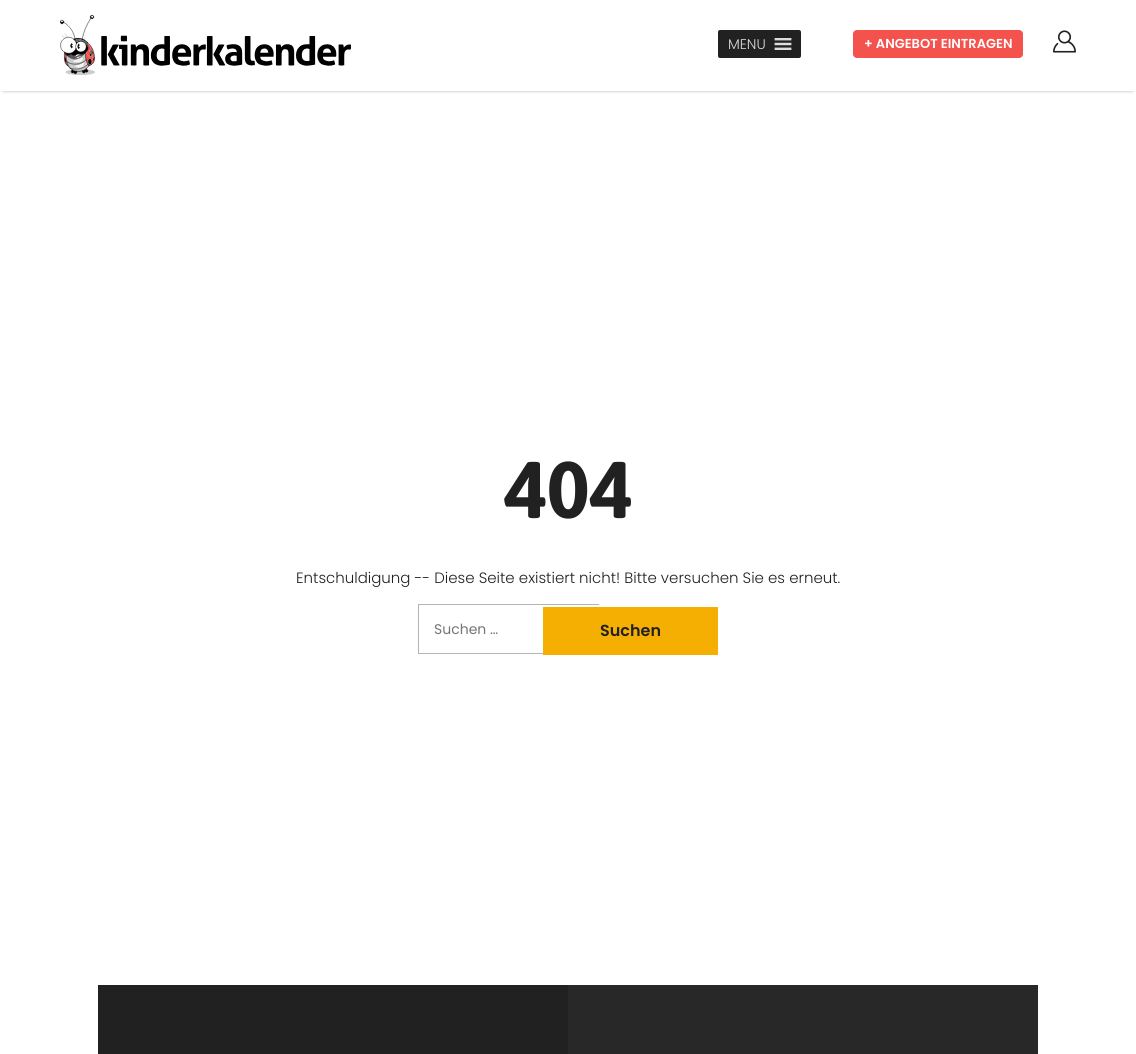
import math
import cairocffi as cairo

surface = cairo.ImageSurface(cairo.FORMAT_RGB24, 1136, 1054)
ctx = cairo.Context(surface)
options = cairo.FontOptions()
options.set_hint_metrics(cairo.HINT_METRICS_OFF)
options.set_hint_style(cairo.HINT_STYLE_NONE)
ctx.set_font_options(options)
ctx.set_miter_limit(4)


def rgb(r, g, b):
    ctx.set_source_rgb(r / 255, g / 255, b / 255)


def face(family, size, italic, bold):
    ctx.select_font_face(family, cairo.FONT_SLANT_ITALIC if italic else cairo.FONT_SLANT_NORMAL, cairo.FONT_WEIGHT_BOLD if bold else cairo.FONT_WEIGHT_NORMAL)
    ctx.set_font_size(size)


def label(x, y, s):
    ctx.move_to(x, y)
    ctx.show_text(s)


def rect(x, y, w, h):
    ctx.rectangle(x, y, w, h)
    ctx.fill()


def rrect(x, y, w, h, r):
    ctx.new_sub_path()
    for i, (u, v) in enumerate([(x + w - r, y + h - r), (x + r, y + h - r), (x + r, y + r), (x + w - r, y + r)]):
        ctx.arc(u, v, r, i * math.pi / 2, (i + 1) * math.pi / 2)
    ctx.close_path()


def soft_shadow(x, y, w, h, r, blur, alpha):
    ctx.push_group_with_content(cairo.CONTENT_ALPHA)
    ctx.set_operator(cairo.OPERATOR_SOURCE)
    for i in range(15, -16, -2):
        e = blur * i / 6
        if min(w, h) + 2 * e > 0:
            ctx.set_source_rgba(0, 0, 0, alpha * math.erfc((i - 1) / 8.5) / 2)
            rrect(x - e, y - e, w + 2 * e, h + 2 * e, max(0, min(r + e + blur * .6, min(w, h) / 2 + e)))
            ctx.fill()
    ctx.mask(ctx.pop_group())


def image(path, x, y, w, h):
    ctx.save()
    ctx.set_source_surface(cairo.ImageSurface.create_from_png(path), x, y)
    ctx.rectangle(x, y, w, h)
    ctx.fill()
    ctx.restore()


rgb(255, 255, 255)
ctx.paint()
ctx.save()
ctx.rectangle(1, 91, 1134, 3)
ctx.clip()
rgb(65, 100, 104)
soft_shadow(3, 6, 1130, 85, 0, 1.5, 0.45)
ctx.restore()
image('image0.png', 60, 15, 291, 60)
rgb(33, 33, 33)
rrect(718, 30, 83, 28, 2)
ctx.fill()
face('Poppins Light', 14, 0, 0)
rgb(221, 221, 221)
label(728, 49, 'MENU')
image('image1.png', 774, 38, 18, 12)
rgb(244, 82, 77)
rrect(853, 30, 170, 28, 4)
ctx.fill()
face('Poppins SemiBold', 13, 0, 0)
rgb(255, 255, 255)
label(864, 48, '+ ANGEBOT EINTRAGEN')
image('image2.png', 1053, 30, 23, 23)
face('Asap', 80, 0, 1)
rgb(33, 33, 34)
label(504, 518, '404')
face('Poppins Light', 15, 0, 0)
label(296, 583, 'Entschuldigung -- Diese Seite existiert nicht! Bitte versuchen Sie es erneut.')
rgb(180, 180, 180)
rect(418, 604, 181, 1)
rect(418, 653, 125, 1)
rect(418, 604, 1, 50)
face('Poppins', 14, 0, 0)
rgb(117, 117, 117)
label(434, 634, 'Suchen …')
rgb(245, 175, 2)
rect(543, 607, 175, 48)
face('Poppins SemiBold', 16, 0, 0)
rgb(33, 33, 34)
label(600, 636, 'Suchen')
rect(98, 985, 470, 69)
rgb(40, 40, 41)
rect(568, 985, 470, 69)
surface.write_to_png('render.png')
